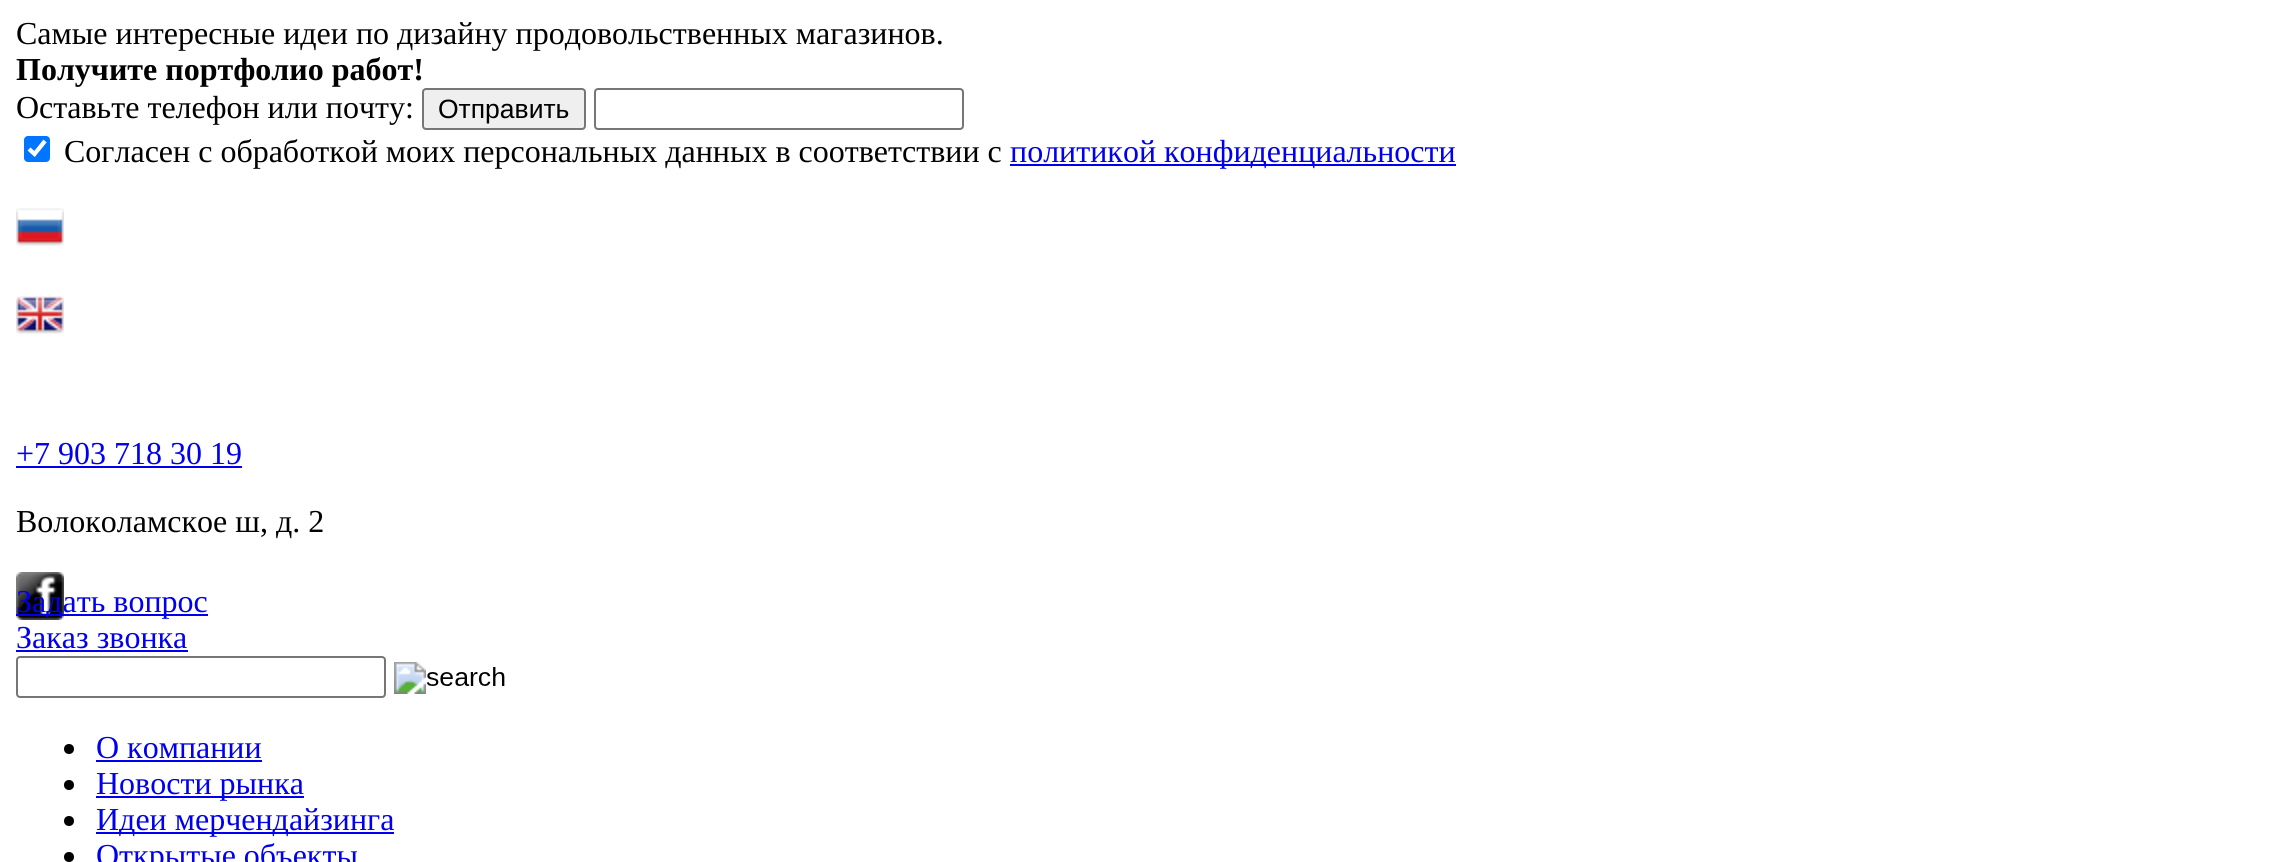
import math
import cairocffi as cairo

surface = cairo.ImageSurface(cairo.FORMAT_RGB24, 2276, 862)
ctx = cairo.Context(surface)
options = cairo.FontOptions()
options.set_hint_metrics(cairo.HINT_METRICS_OFF)
options.set_hint_style(cairo.HINT_STYLE_NONE)
ctx.set_font_options(options)
ctx.set_miter_limit(4)


def rgb(r, g, b):
    ctx.set_source_rgb(r / 255, g / 255, b / 255)


def face(family, size, italic, bold):
    ctx.select_font_face(family, cairo.FONT_SLANT_ITALIC if italic else cairo.FONT_SLANT_NORMAL, cairo.FONT_WEIGHT_BOLD if bold else cairo.FONT_WEIGHT_NORMAL)
    ctx.set_font_size(size)


def label(x, y, s):
    ctx.move_to(x, y)
    ctx.show_text(s)


def rect(x, y, w, h):
    ctx.rectangle(x, y, w, h)
    ctx.fill()


def rrect(x, y, w, h, r):
    ctx.new_sub_path()
    for i, (u, v) in enumerate([(x + w - r, y + h - r), (x + r, y + h - r), (x + r, y + r), (x + w - r, y + r)]):
        ctx.arc(u, v, r, i * math.pi / 2, (i + 1) * math.pi / 2)
    ctx.close_path()


def image(path, x, y, w, h):
    ctx.save()
    ctx.set_source_surface(cairo.ImageSurface.create_from_png(path), x, y)
    ctx.rectangle(x, y, w, h)
    ctx.fill()
    ctx.restore()


rgb(255, 255, 255)
ctx.paint()
face('Liberation Serif', 32, 0, 0)
rgb(0, 0, 0)
label(16, 44, 'Самые интересные идеи по дизайну продовольственных магазинов.')
face('Liberation Serif', 32, 0, 1)
label(16, 80, 'Получите портфолио работ!')
face('Liberation Serif', 32, 0, 0)
label(16, 118, 'Оставьте телефон или почту:')
rgb(239, 239, 239)
rrect(423, 89, 162, 40, 3)
ctx.fill_preserve()
rgb(118, 118, 118)
ctx.stroke()
face('Liberation Sans', 26.5, 0, 0)
rgb(0, 0, 0)
label(438, 118, 'Отправить')
rrect(595, 89, 368, 40, 3)
rgb(118, 118, 118)
ctx.stroke()
rgb(0, 117, 255)
rrect(24, 136, 26, 26, 4)
ctx.fill()
ctx.new_path()
ctx.move_to(29, 149)
ctx.line_to(34.5, 154)
ctx.line_to(45, 141)
rgb(255, 255, 255)
ctx.set_line_width(4.2)
ctx.stroke()
face('Liberation Serif', 32, 0, 0)
rgb(0, 0, 0)
label(64, 162, 'Согласен с обработкой моих персональных данных в соответствии с')
rgb(0, 0, 238)
rect(1010, 164, 446, 2)
label(1010, 162, 'политикой конфиденциальности')
image('image0.png', 16, 208, 48, 38)
image('image1.png', 16, 296, 48, 38)
label(16, 464, '+7 903 718 30 19')
rect(16, 466, 226, 2)
rgb(0, 0, 0)
label(16, 532, 'Волоколамское ш, д. 2')
image('image2.png', 16, 572, 48, 48)
rgb(0, 0, 238)
rect(16, 614, 192, 2)
label(16, 612, 'Задать вопрос')
label(16, 648, 'Заказ звонка')
rect(16, 650, 172, 2)
rrect(17, 657, 368, 40, 3)
rgb(118, 118, 118)
ctx.set_line_width(2)
ctx.stroke()
image('image3.png', 394, 662, 111, 32)
rgb(0, 0, 0)
ctx.arc(69, 749, 5, 0, 2 * math.pi)
ctx.fill()
rgb(0, 0, 238)
label(96, 758, 'О компании')
rect(96, 760, 166, 2)
rgb(0, 0, 0)
ctx.new_path()
ctx.arc(69, 785, 5, 0, 2 * math.pi)
ctx.fill()
rgb(0, 0, 238)
rect(96, 796, 208, 2)
label(96, 794, 'Новости рынка')
rgb(0, 0, 0)
ctx.new_path()
ctx.arc(69, 821, 5, 0, 2 * math.pi)
ctx.fill()
rgb(0, 0, 238)
rect(96, 832, 298, 2)
label(96, 830, 'Идеи мерчендайзинга')
rgb(0, 0, 0)
ctx.new_path()
ctx.arc(69, 857, 5, 0, 2 * math.pi)
ctx.fill()
rgb(0, 0, 238)
label(96, 866, 'Открытые объекты')
surface.write_to_png('render.png')
